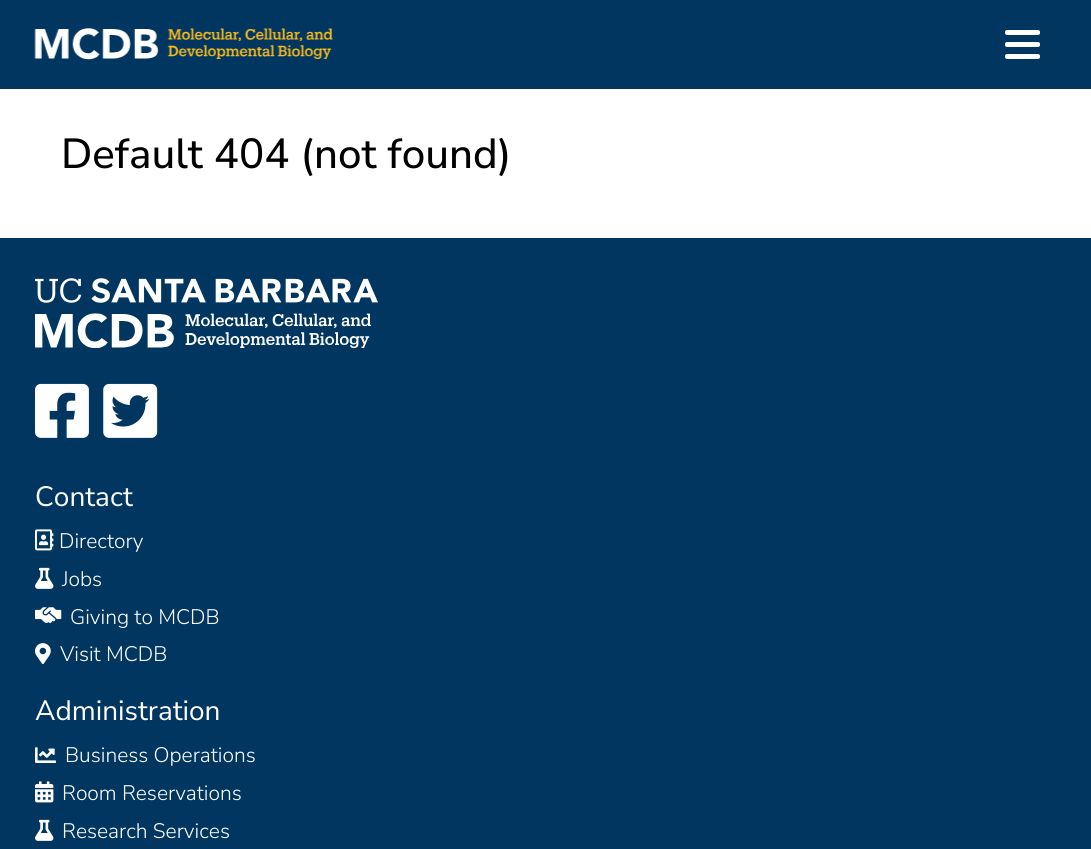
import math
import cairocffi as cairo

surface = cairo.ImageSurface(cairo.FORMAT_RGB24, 1091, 849)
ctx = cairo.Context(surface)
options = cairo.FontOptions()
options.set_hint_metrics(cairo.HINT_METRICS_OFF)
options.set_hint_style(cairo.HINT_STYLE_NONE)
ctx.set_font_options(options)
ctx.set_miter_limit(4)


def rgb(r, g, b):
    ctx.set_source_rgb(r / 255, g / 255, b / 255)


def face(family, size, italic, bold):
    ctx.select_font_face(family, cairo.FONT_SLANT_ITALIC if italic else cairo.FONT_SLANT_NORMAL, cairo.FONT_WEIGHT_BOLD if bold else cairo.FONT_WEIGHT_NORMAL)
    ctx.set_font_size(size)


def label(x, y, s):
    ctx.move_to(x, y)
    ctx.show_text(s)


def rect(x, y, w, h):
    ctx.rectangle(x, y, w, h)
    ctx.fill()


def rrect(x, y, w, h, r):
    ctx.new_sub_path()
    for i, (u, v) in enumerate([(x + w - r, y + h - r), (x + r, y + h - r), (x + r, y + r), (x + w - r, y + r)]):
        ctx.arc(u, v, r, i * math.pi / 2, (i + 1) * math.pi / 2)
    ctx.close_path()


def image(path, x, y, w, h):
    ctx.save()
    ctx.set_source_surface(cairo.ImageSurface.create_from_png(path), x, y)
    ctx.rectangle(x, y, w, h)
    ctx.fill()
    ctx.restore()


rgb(255, 255, 255)
ctx.paint()
rgb(0, 54, 96)
rect(0, 0, 1091, 89)
image('image0.png', 34, 28, 299, 32)
rgb(255, 255, 255)
rrect(1005, 30, 35, 5, 2)
ctx.fill()
rrect(1005, 42, 35, 5, 2)
ctx.fill()
rrect(1005, 54, 35, 5, 2)
ctx.fill()
face('Nunito Sans Medium', 42, 0, 0)
rgb(0, 0, 0)
label(61, 168, 'Default 404 (not found)')
rgb(0, 54, 96)
rect(0, 238, 1091, 611)
image('image1.png', 35, 278, 343, 25)
image('image2.png', 35, 313, 336, 35)
image('image3.png', 35, 383, 54, 55)
image('image4.png', 103, 383, 55, 55)
face('Nunito Sans', 28, 0, 0)
rgb(255, 255, 255)
label(35, 506, 'Contact')
image('image5.png', 35, 529, 19, 22)
face('Nunito Sans Light', 21, 0, 0)
label(59, 548, 'Directory')
image('image6.png', 35, 567, 19, 22)
label(62, 586, 'Jobs')
image('image7.png', 35, 607, 27, 16)
label(70, 624, 'Giving to MCDB')
image('image8.png', 35, 643, 16, 22)
label(60, 661, 'Visit MCDB')
face('Nunito Sans', 28, 0, 0)
label(35, 720, 'Administration')
image('image9.png', 35, 747, 21, 16)
face('Nunito Sans Light', 21, 0, 0)
label(65, 762, 'Business Operations')
image('image10.png', 35, 781, 19, 22)
label(62, 800, 'Room Reservations')
image('image6.png', 35, 819, 19, 22)
label(62, 838, 'Research Services')
surface.write_to_png('render.png')
